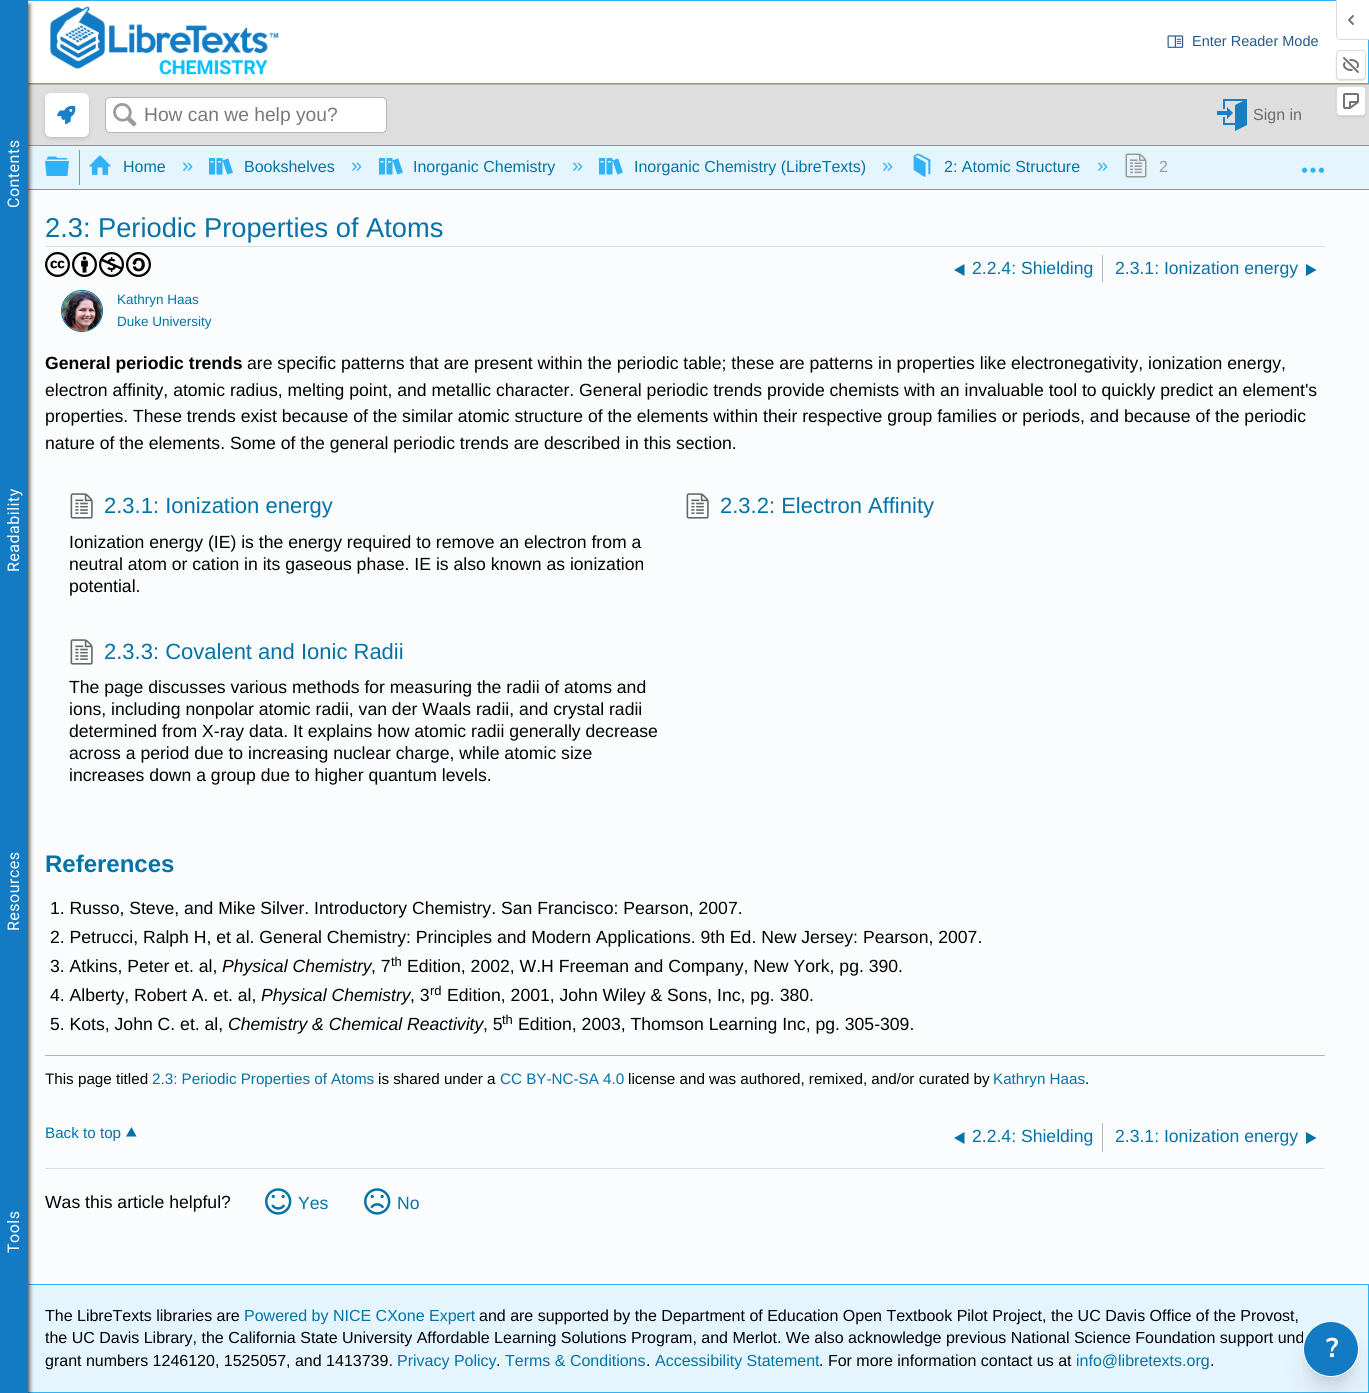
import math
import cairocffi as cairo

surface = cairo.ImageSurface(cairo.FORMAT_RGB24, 1369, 1393)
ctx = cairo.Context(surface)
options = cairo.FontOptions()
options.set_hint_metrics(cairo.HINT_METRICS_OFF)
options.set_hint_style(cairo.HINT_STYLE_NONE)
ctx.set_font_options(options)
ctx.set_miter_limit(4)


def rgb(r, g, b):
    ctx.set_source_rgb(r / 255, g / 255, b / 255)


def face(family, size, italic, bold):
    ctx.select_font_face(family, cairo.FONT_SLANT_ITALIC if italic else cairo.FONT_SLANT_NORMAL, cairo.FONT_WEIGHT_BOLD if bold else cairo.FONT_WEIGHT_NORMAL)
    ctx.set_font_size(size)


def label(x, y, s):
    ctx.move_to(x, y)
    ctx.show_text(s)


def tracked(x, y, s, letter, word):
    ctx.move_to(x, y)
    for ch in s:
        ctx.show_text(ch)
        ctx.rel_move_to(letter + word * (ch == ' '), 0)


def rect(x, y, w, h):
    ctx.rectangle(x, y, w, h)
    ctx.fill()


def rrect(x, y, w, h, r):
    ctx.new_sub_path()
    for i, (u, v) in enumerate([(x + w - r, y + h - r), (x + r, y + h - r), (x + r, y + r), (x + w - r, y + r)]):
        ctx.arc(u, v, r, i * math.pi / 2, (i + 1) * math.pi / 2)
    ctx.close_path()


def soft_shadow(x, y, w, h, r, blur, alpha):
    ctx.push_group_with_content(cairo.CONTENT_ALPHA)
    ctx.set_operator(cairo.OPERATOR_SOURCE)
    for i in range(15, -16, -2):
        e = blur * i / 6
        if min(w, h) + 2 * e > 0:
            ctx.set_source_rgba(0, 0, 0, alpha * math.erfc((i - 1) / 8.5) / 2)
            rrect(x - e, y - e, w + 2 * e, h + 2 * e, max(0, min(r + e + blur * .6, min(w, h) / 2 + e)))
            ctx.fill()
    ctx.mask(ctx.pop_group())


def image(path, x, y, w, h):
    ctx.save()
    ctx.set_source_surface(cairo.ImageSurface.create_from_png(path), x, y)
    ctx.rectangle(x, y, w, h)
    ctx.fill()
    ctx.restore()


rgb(251, 252, 254)
ctx.paint()
rgb(255, 255, 255)
rect(28, 1, 1340, 82)
ctx.rectangle(0.5, 0.5, 1368, 83)
rgb(48, 179, 246)
ctx.set_line_width(1)
ctx.stroke()
rgb(222, 222, 222)
rect(28, 85, 1341, 60)
rgb(182, 182, 182)
rect(28, 84, 1341, 1)
rgb(229, 245, 254)
rect(28, 146, 1341, 43)
rgb(48, 179, 246)
rect(28, 145, 1341, 1)
rect(28, 189, 1341, 1)
rgb(229, 245, 254)
rect(28, 1285, 1340, 107)
ctx.rectangle(0.5, 1284.5, 1368, 108)
rgb(48, 179, 246)
ctx.stroke()
rgb(0, 0, 0)
soft_shadow(2, 4, 28, 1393, 0, 2, 0.6)
rgb(18, 123, 196)
rect(0, 0, 28, 1393)
face('Roboto', 16, 0, 0)
rgb(255, 255, 255)
ctx.save()
ctx.translate(19, 208)
ctx.rotate(-90 * math.pi / 180)
tracked(0, 0, 'Contents', 0.5, 0)
ctx.restore()
ctx.save()
ctx.translate(19, 572)
ctx.rotate(-90 * math.pi / 180)
tracked(0, 0, 'Readability', 0.5, 0)
ctx.restore()
ctx.save()
ctx.translate(19, 931)
ctx.rotate(-90 * math.pi / 180)
tracked(0, 0, 'Resources', 0.5, 0)
ctx.restore()
ctx.save()
ctx.translate(19, 1253)
ctx.rotate(-90 * math.pi / 180)
tracked(0, 0, 'Tools', 0.5, 0)
ctx.restore()
image('image0.png', 50, 6, 229, 69)
image('image1.png', 1167, 35, 17, 13)
face('Liberation Sans', 14.5, 0, 0)
rgb(35, 90, 139)
label(1192, 46, 'Enter Reader Mode')
rgb(8, 8, 8)
soft_shadow(46, 96, 42, 42, 5, 2.5, 0.2)
rgb(255, 255, 255)
rrect(45, 93, 44, 44, 6)
ctx.fill()
image('image2.png', 57, 105, 19, 20)
rrect(105.5, 97.5, 281, 35, 4.5)
ctx.fill_preserve()
rgb(182, 182, 182)
ctx.stroke()
image('image3.png', 113, 103, 24, 24)
face('Liberation Sans', 19.25, 0, 0)
rgb(121, 121, 121)
label(144, 121, 'How can we help you?')
image('image4.png', 1217, 99, 30, 32)
face('Liberation Sans', 16, 0, 0)
rgb(106, 107, 107)
label(1253, 120, 'Sign in')
image('image5.png', 45, 156, 24, 20)
rgb(48, 179, 246)
rect(79, 150, 1, 35)
image('image6.png', 89, 155, 22, 20)
rgb(3, 114, 166)
label(123, 172, 'Home')
face('Liberation Sans', 20, 0, 0)
rgb(48, 179, 246)
label(182, 172, '»')
image('image7.png', 209, 158, 24, 17)
face('Liberation Sans', 16, 0, 0)
rgb(3, 114, 166)
label(244, 172, 'Bookshelves')
face('Liberation Sans', 20, 0, 0)
rgb(48, 179, 246)
label(351, 172, '»')
image('image7.png', 379, 158, 24, 17)
face('Liberation Sans', 16, 0, 0)
rgb(3, 114, 166)
label(413, 172, 'Inorganic Chemistry')
face('Liberation Sans', 20, 0, 0)
rgb(48, 179, 246)
label(572, 172, '»')
image('image7.png', 599, 158, 24, 17)
face('Liberation Sans', 16, 0, 0)
rgb(3, 114, 166)
label(634, 172, 'Inorganic Chemistry (LibreTexts)')
face('Liberation Sans', 20, 0, 0)
rgb(48, 179, 246)
label(882, 172, '»')
image('image8.png', 913, 153, 18, 24)
face('Liberation Sans', 16, 0, 0)
rgb(3, 114, 166)
label(944, 172, '2: Atomic Structure')
face('Liberation Sans', 20, 0, 0)
rgb(48, 179, 246)
label(1097, 172, '»')
image('image9.png', 1125, 153, 22, 25)
face('Liberation Sans', 16, 0, 0)
rgb(153, 153, 153)
label(1159, 172, '2')
image('image10.png', 1302, 167, 22, 6)
rgb(221, 221, 221)
rect(45, 246, 1280, 1)
face('Liberation Sans', 27.25, 0, 0)
rgb(3, 114, 166)
label(45, 237, '2.3: Periodic Properties of Atoms')
image('image11.png', 45, 252, 25, 25)
image('image12.png', 72, 252, 25, 25)
image('image13.png', 99, 252, 25, 25)
image('image14.png', 126, 252, 25, 25)
rgb(180, 180, 180)
rect(1102, 255, 1, 27)
rgb(3, 114, 166)
ctx.new_path()
ctx.move_to(964.5, 264)
ctx.line_to(964.5, 276)
ctx.line_to(954, 270)
ctx.close_path()
ctx.fill()
face('Liberation Sans', 17.6, 0, 0)
label(972, 274, '2.2.4: Shielding')
label(1115, 274, '2.3.1: Ionization energy')
ctx.new_path()
ctx.move_to(1306, 264)
ctx.line_to(1306, 276)
ctx.line_to(1316.5, 270)
ctx.close_path()
ctx.fill()
ctx.arc(82, 311, 20.5, 0, 2 * math.pi)
ctx.stroke()
image('image15.png', 62, 291, 40, 40)
face('Liberation Sans', 13.5, 0, 0)
label(117, 304, 'Kathryn Haas')
label(117, 326, 'Duke University')
face('Liberation Sans', 17.6, 0, 1)
rgb(0, 0, 0)
label(45, 369, 'General periodic trends')
face('Liberation Sans', 17.6, 0, 0)
label(247, 369, 'are specific patterns that are present within the periodic table; these are patterns in properties like electronegativity, ionization energy,')
label(45, 396, 'electron affinity, atomic radius, melting point, and metallic character. General periodic trends provide chemists with an invaluable tool to quickly predict an element\'s')
label(45, 422, 'properties. These trends exist because of the similar atomic structure of the elements within their respective group families or periods, and because of the periodic')
label(45, 449, 'nature of the elements. Some of the general periodic trends are described in this section.')
image('image16.png', 70, 493, 23, 26)
face('Liberation Sans', 22, 0, 0)
rgb(3, 114, 166)
label(104, 513, '2.3.1: Ionization energy')
face('Liberation Sans', 17.6, 0, 0)
rgb(0, 0, 0)
label(69, 548, 'Ionization energy (IE) is the energy required to remove an electron from a')
label(69, 570, 'neutral atom or cation in its gaseous phase. IE is also known as ionization')
label(69, 592, 'potential.')
image('image16.png', 686, 493, 23, 26)
face('Liberation Sans', 22, 0, 0)
rgb(3, 114, 166)
label(720, 513, '2.3.2: Electron Affinity')
image('image16.png', 70, 639, 23, 26)
label(104, 659, '2.3.3: Covalent and Ionic Radii')
face('Liberation Sans', 17.6, 0, 0)
rgb(0, 0, 0)
label(69, 693, 'The page discusses various methods for measuring the radii of atoms and')
label(69, 715, 'ions, including nonpolar atomic radii, van der Waals radii, and crystal radii')
label(69, 737, 'determined from X-ray data. It explains how atomic radii generally decrease')
label(69, 759, 'across a period due to increasing nuclear charge, while atomic size')
label(69, 781, 'increases down a group due to higher quantum levels.')
face('Liberation Sans', 24, 0, 1)
rgb(3, 114, 166)
label(45, 872, 'References')
face('Liberation Sans', 17.6, 0, 0)
rgb(0, 0, 0)
label(50, 914, '1. Russo, Steve, and Mike Silver. Introductory Chemistry. San Francisco: Pearson, 2007.')
label(50, 943, '2. Petrucci, Ralph H, et al. General Chemistry: Principles and Modern Applications. 9th Ed. New Jersey: Pearson, 2007.')
label(50, 972, '3. Atkins, Peter et. al,')
face('Liberation Sans', 17.6, 1, 0)
label(222, 972, 'Physical Chemistry')
face('Liberation Sans', 17.6, 0, 0)
label(371, 972, ', 7')
face('Liberation Sans', 13, 0, 0)
label(391, 966, 'th')
face('Liberation Sans', 17.6, 0, 0)
label(407, 972, 'Edition, 2002, W.H Freeman and Company, New York, pg. 390.')
label(50, 1001, '4. Alberty, Robert A. et. al,')
face('Liberation Sans', 17.6, 1, 0)
label(261, 1001, 'Physical Chemistry')
face('Liberation Sans', 17.6, 0, 0)
label(410, 1001, ', 3')
face('Liberation Sans', 13, 0, 0)
label(430, 995, 'rd')
face('Liberation Sans', 17.6, 0, 0)
label(447, 1001, 'Edition, 2001, John Wiley & Sons, Inc, pg. 380.')
label(50, 1030, '5. Kots, John C. et. al,')
face('Liberation Sans', 17.6, 1, 0)
label(228, 1030, 'Chemistry & Chemical Reactivity')
face('Liberation Sans', 17.6, 0, 0)
label(483, 1030, ', 5')
face('Liberation Sans', 13, 0, 0)
label(502, 1024, 'th')
face('Liberation Sans', 17.6, 0, 0)
label(518, 1030, 'Edition, 2003, Thomson Learning Inc, pg. 305-309.')
rgb(180, 180, 180)
rect(45, 1055, 1280, 1)
face('Liberation Sans', 15.2, 0, 0)
rgb(0, 0, 0)
label(45, 1084, 'This page titled')
rgb(3, 114, 166)
label(152, 1084, '2.3: Periodic Properties of Atoms')
rgb(0, 0, 0)
label(378, 1084, 'is shared under a')
rgb(3, 114, 166)
label(500, 1084, 'CC BY-NC-SA 4.0')
rgb(0, 0, 0)
label(628, 1084, 'license and was authored, remixed, and/or curated by')
rgb(3, 114, 166)
label(993, 1084, 'Kathryn Haas')
rgb(0, 0, 0)
label(1085, 1084, '.')
rgb(221, 221, 221)
rect(45, 1168, 1280, 1)
rgb(3, 114, 166)
label(45, 1138, 'Back to top')
ctx.new_path()
ctx.move_to(126, 1136.5)
ctx.line_to(136.5, 1136.5)
ctx.line_to(131.5, 1127)
ctx.close_path()
ctx.fill()
rgb(180, 180, 180)
rect(1102, 1123, 1, 29)
rgb(3, 114, 166)
ctx.new_path()
ctx.move_to(964.5, 1132)
ctx.line_to(964.5, 1144)
ctx.line_to(954, 1138)
ctx.close_path()
ctx.fill()
face('Liberation Sans', 17.6, 0, 0)
label(972, 1142, '2.2.4: Shielding')
label(1115, 1142, '2.3.1: Ionization energy')
ctx.new_path()
ctx.move_to(1306, 1132)
ctx.line_to(1306, 1144)
ctx.line_to(1316.5, 1138)
ctx.close_path()
ctx.fill()
rgb(0, 0, 0)
label(45, 1208, 'Was this article helpful?')
image('image17.png', 265, 1188, 27, 27)
rgb(3, 114, 166)
label(298, 1209, 'Yes')
image('image18.png', 364, 1188, 27, 27)
label(397, 1209, 'No')
face('Liberation Sans', 16, 0, 0)
rgb(0, 0, 0)
label(45, 1321, 'The LibreTexts libraries are')
rgb(3, 114, 166)
label(244, 1321, 'Powered by NICE CXone Expert')
rgb(0, 0, 0)
label(479, 1321, 'and are supported by the Department of Education Open Textbook Pilot Project, the UC Davis Office of the Provost,')
label(45, 1343, 'the UC Davis Library, the California State University Affordable Learning Solutions Program, and Merlot. We also acknowledge previous National Science Foundation support und')
label(45, 1366, 'grant numbers 1246120, 1525057, and 1413739.')
rgb(3, 114, 166)
label(397, 1366, 'Privacy Policy')
rgb(0, 0, 0)
label(496, 1366, '.')
rgb(3, 114, 166)
label(505, 1366, 'Terms & Conditions')
rgb(0, 0, 0)
label(646, 1366, '.')
rgb(3, 114, 166)
label(655, 1366, 'Accessibility Statement')
rgb(0, 0, 0)
label(819, 1366, '. For more information contact us at')
rgb(3, 114, 166)
label(1076, 1366, 'info@libretexts.org')
rgb(0, 0, 0)
label(1210, 1366, '.')
rgb(0, 0, 0)
soft_shadow(1309, 1335, 44, 44, 22, 5, 0.1)
soft_shadow(1308, 1346, 46, 46, 23, 12.5, 0.1)
rgb(18, 123, 196)
ctx.arc(1331, 1349, 27.5, 0, 2 * math.pi)
ctx.fill_preserve()
rgb(255, 255, 255)
ctx.stroke()
face('Nunito Sans', 27, 0, 1)
label(1326, 1357, '?')
ctx.new_path()
ctx.move_to(1337, 0)
ctx.line_to(1369, 0)
ctx.line_to(1369, 39)
ctx.line_to(1340, 39)
ctx.curve_to(1338.5, 39, 1337, 37.5, 1337, 36)
ctx.close_path()
ctx.fill()
rgb(219, 219, 219)
ctx.set_fill_rule(cairo.FILL_RULE_EVEN_ODD)
ctx.new_path()
ctx.move_to(1336, 0)
ctx.line_to(1369, 0)
ctx.line_to(1369, 40)
ctx.line_to(1340, 40)
ctx.curve_to(1338, 40, 1336, 38, 1336, 36)
ctx.close_path()
ctx.move_to(1337, 0)
ctx.line_to(1369, 0)
ctx.line_to(1369, 39)
ctx.line_to(1340, 39)
ctx.curve_to(1338, 39, 1337, 38, 1337, 36)
ctx.close_path()
ctx.fill()
image('image19.png', 1348, 15, 6, 10)
rgb(0, 0, 0)
soft_shadow(1336, 51, 30, 30, 4, 0.5, 0.1)
rgb(255, 255, 255)
rrect(1336.5, 50.5, 29, 29, 3.5)
ctx.fill_preserve()
rgb(219, 219, 219)
ctx.stroke()
image('image20.png', 1343, 57, 16, 16)
rgb(0, 0, 0)
soft_shadow(1336, 87, 30, 30, 4, 0.5, 0.1)
rgb(255, 255, 255)
rrect(1336.5, 86.5, 29, 29, 3.5)
ctx.fill_preserve()
rgb(219, 219, 219)
ctx.stroke()
image('image21.png', 1343, 93, 16, 16)
surface.write_to_png('render.png')
